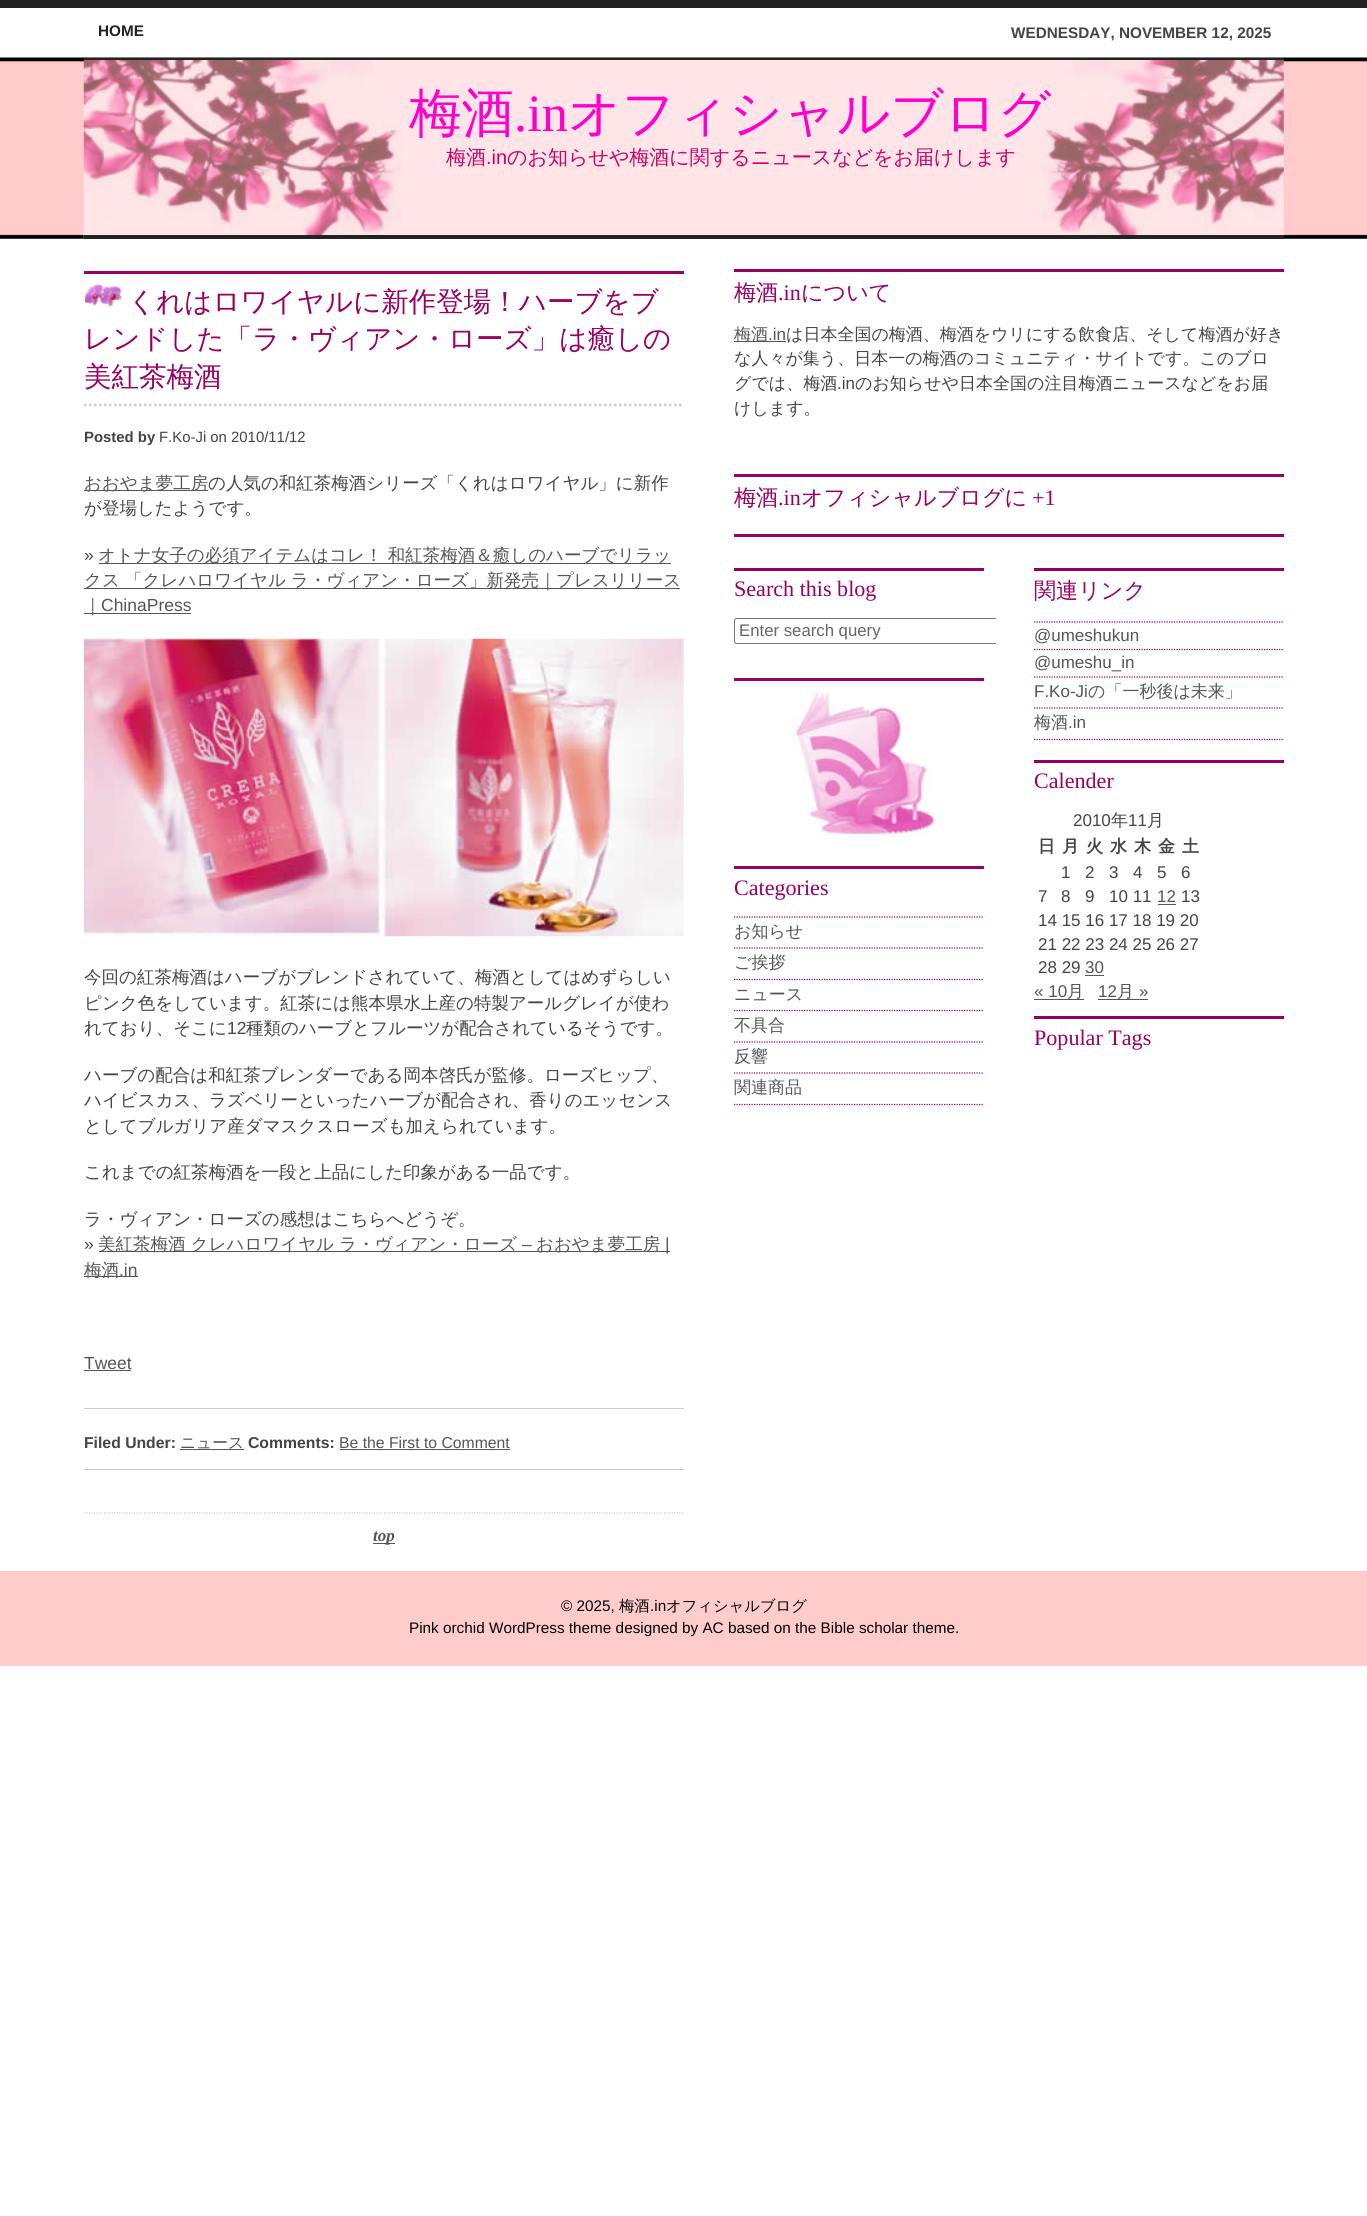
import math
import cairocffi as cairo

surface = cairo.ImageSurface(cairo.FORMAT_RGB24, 1367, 2216)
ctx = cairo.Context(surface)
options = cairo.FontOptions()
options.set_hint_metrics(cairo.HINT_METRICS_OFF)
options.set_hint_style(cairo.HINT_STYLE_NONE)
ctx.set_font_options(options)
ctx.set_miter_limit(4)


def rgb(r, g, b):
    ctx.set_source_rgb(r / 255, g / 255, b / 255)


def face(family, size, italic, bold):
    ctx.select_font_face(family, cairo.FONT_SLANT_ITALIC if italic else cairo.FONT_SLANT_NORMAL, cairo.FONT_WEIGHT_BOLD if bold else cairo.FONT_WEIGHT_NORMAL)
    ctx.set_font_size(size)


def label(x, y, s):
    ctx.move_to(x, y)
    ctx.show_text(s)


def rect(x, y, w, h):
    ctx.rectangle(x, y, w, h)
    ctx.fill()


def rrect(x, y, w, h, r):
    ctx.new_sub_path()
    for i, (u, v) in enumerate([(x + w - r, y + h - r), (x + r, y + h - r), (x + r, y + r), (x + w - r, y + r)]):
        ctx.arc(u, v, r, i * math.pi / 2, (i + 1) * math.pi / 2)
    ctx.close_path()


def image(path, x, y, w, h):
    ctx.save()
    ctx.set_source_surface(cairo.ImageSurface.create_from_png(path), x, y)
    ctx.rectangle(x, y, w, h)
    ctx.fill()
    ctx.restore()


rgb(255, 255, 255)
ctx.paint()
image('image0.png', 0, 8, 1367, 231)
rgb(34, 34, 34)
rect(0, 0, 1367, 8)
rect(84, 58, 1200, 3)
face('Liberation Sans', 15.3, 0, 1)
label(98, 36, 'HOME')
rgb(68, 68, 68)
label(1011, 38, 'WEDNESDAY, NOVEMBER 12, 2025')
image('image1.png', 83, 60, 1201, 179)
rgb(34, 34, 34)
rect(84, 235, 1200, 4)
face('WenQuanYi Zen Hei Medium', 52.5, 0, 0)
rgb(255, 0, 204)
label(409, 131, '梅酒')
face('Liberation Serif', 52.5, 0, 0)
label(514, 131, '.in')
face('WenQuanYi Zen Hei Medium', 52.5, 0, 0)
label(568, 131, 'オフィシャルブログ')
face('WenQuanYi Zen Hei Medium', 20, 0, 0)
rgb(204, 0, 102)
label(446, 164, '梅酒')
face('Liberation Sans', 20, 0, 0)
label(486, 164, '.in')
face('WenQuanYi Zen Hei Medium', 20, 0, 0)
label(507, 164, 'のお知らせや梅酒に関するニュースなどをお届けします')
rgb(153, 0, 102)
rect(84, 271, 600, 3)
ctx.new_path()
ctx.move_to(84, 405)
ctx.line_to(684, 405)
rgb(204, 204, 204)
ctx.set_line_width(2.5)
ctx.set_dash([2.5, 2.5])
ctx.stroke()
image('image2.png', 84, 284, 38, 23)
face('WenQuanYi Zen Hei Medium', 27.5, 0, 0)
rgb(153, 0, 102)
label(128, 311, 'くれはロワイヤルに新作登場！ハーブをブ')
label(84, 348, 'レンドした「ラ・ヴィアン・ローズ」は癒しの')
label(84, 386, '美紅茶梅酒')
face('Liberation Sans', 14.9, 0, 1)
rgb(68, 68, 68)
label(84, 442, 'Posted by')
face('Liberation Sans', 14.9, 0, 0)
label(159, 442, 'F.Ko-Ji on 2010/11/12')
rgb(85, 85, 85)
rect(84, 490, 124, 1)
face('WenQuanYi Zen Hei Medium', 17.5, 0, 0)
label(84, 489, 'おおやま夢工房')
rgb(68, 68, 68)
label(208, 489, 'の人気の和紅茶梅酒シリーズ「くれはロワイヤル」に新作')
label(84, 514, 'が登場したようです。')
face('Liberation Sans', 17.5, 0, 0)
label(84, 561, '»')
rgb(85, 85, 85)
rect(99, 563, 572, 1)
face('WenQuanYi Zen Hei Medium', 17.5, 0, 0)
label(98, 561, 'オトナ女子の必須アイテムはコレ！ 和紅茶梅酒＆癒しのハーブでリラッ')
rect(84, 588, 596, 1)
label(84, 586, 'クス 「クレハロワイヤル ラ・ヴィアン・ローズ」新発売｜プレスリリース')
rect(84, 613, 107, 1)
label(84, 611, '｜')
face('Liberation Sans', 17.5, 0, 0)
label(101, 611, 'ChinaPress')
image('image3.png', 83, 638, 601, 299)
face('WenQuanYi Zen Hei Medium', 17.5, 0, 0)
rgb(68, 68, 68)
label(84, 983, '今回の紅茶梅酒はハーブがブレンドされていて、梅酒としてはめずらしい')
label(84, 1009, 'ピンク色をしています。紅茶には熊本県水上産の特製アールグレイが使わ')
label(84, 1034, 'れており、そこに')
face('Liberation Sans', 17.5, 0, 0)
label(227, 1034, '12')
face('WenQuanYi Zen Hei Medium', 17.5, 0, 0)
label(246, 1034, '種類のハーブとフルーツが配合されているそうです。')
label(84, 1081, 'ハーブの配合は和紅茶ブレンダーである岡本啓氏が監修。ローズヒップ、')
label(84, 1106, 'ハイビスカス、ラズベリーといったハーブが配合され、香りのエッセンス')
label(84, 1132, 'としてブルガリア産ダマスクスローズも加えられています。')
label(84, 1178, 'これまでの紅茶梅酒を一段と上品にした印象がある一品です。')
label(84, 1225, 'ラ・ヴィアン・ローズの感想はこちらへどうぞ。')
face('Liberation Sans', 17.5, 0, 0)
label(84, 1250, '»')
rgb(85, 85, 85)
rect(99, 1251, 571, 1)
face('WenQuanYi Zen Hei Medium', 17.5, 0, 0)
label(98, 1250, '美紅茶梅酒 クレハロワイヤル ラ・ヴィアン・ローズ')
face('Liberation Sans', 17.5, 0, 0)
label(522, 1250, '–')
face('WenQuanYi Zen Hei Medium', 17.5, 0, 0)
label(536, 1250, 'おおやま夢工房')
face('Liberation Sans', 17.5, 0, 0)
label(665, 1250, '|')
rect(84, 1276, 54, 1)
face('WenQuanYi Zen Hei Medium', 17.5, 0, 0)
label(84, 1276, '梅酒')
face('Liberation Sans', 17.5, 0, 0)
label(119, 1276, '.in')
label(84, 1369, 'Tweet')
rect(84, 1370, 47, 1)
rgb(204, 204, 204)
rect(84, 1408, 600, 1)
rect(84, 1469, 600, 1)
face('Liberation Sans', 15.75, 0, 1)
rgb(68, 68, 68)
label(84, 1448, 'Filed Under:')
face('WenQuanYi Zen Hei Medium', 15.75, 0, 0)
rgb(85, 85, 85)
label(180, 1448, 'ニュース')
rect(180, 1449, 64, 1)
face('Liberation Sans', 15.75, 0, 1)
rgb(68, 68, 68)
label(248, 1448, 'Comments:')
face('Liberation Sans', 15.75, 0, 0)
rgb(85, 85, 85)
label(339, 1448, 'Be the First to Comment')
rect(340, 1449, 170, 1)
ctx.new_path()
ctx.move_to(84, 1513)
ctx.line_to(684, 1513)
rgb(204, 204, 204)
ctx.set_line_width(1.2)
ctx.set_dash([1.25, 1.25])
ctx.stroke()
rgb(85, 85, 85)
rect(373, 1543, 22, 1)
face('Liberation Serif', 17, 1, 1)
label(373, 1541, 'top')
rgb(153, 0, 102)
rect(734, 269, 550, 3)
face('WenQuanYi Zen Hei Medium', 22.1, 0, 0)
label(734, 300, '梅酒')
face('Liberation Serif', 22.1, 0, 0)
label(778, 300, '.in')
face('WenQuanYi Zen Hei Medium', 22.1, 0, 0)
label(801, 300, 'について')
rgb(85, 85, 85)
rect(734, 341, 52, 1)
face('WenQuanYi Zen Hei Medium', 17, 0, 0)
label(734, 340, '梅酒')
face('Liberation Sans', 17, 0, 0)
label(768, 340, '.in')
face('WenQuanYi Zen Hei Medium', 17, 0, 0)
rgb(68, 68, 68)
label(786, 340, 'は日本全国の梅酒、梅酒をウリにする飲食店、そして梅酒が好き')
label(734, 364, 'な人々が集う、日本一の梅酒のコミュニティ・サイトです。このブロ')
label(734, 389, 'グでは、梅酒')
face('Liberation Sans', 17, 0, 0)
label(837, 389, '.in')
face('WenQuanYi Zen Hei Medium', 17, 0, 0)
label(855, 389, 'のお知らせや日本全国の注目梅酒ニュースなどをお届')
label(734, 414, 'けします。')
rgb(153, 0, 102)
rect(734, 474, 550, 3)
face('WenQuanYi Zen Hei Medium', 22.1, 0, 0)
label(734, 505, '梅酒')
face('Liberation Serif', 22.1, 0, 0)
label(778, 505, '.in')
face('WenQuanYi Zen Hei Medium', 22.1, 0, 0)
label(801, 505, 'オフィシャルブログに')
face('Liberation Serif', 22.1, 0, 0)
label(1032, 505, '+1')
rect(734, 534, 550, 3)
rect(734, 568, 250, 3)
label(734, 596, 'Search this blog')
ctx.save()
ctx.rectangle(734, 555, 262, 583)
ctx.clip()
rrect(734.5, 618.5, 310, 25, 2)
rgb(118, 118, 118)
ctx.set_line_width(1)
ctx.set_dash([])
ctx.stroke()
ctx.restore()
face('Liberation Sans', 16.75, 0, 0)
rgb(102, 102, 102)
label(739, 636, 'Enter search query')
rgb(153, 0, 102)
rect(734, 678, 250, 3)
image('image4.png', 791, 686, 150, 151)
rect(734, 866, 250, 3)
face('Liberation Serif', 22.1, 0, 0)
label(734, 895, 'Categories')
ctx.new_path()
ctx.move_to(734, 917)
ctx.line_to(984, 917)
ctx.stroke()
ctx.new_path()
ctx.move_to(734, 948)
ctx.line_to(984, 948)
ctx.stroke()
face('WenQuanYi Zen Hei Medium', 17, 0, 0)
rgb(85, 85, 85)
label(734, 937, 'お知らせ')
ctx.new_path()
ctx.move_to(734, 979.5)
ctx.line_to(984, 979.5)
rgb(153, 0, 102)
ctx.stroke()
rgb(85, 85, 85)
label(734, 968, 'ご挨拶')
ctx.new_path()
ctx.move_to(734, 1010.5)
ctx.line_to(984, 1010.5)
rgb(153, 0, 102)
ctx.stroke()
rgb(85, 85, 85)
label(734, 1000, 'ニュース')
ctx.new_path()
ctx.move_to(734, 1042)
ctx.line_to(984, 1042)
rgb(153, 0, 102)
ctx.stroke()
rgb(85, 85, 85)
label(734, 1031, '不具合')
ctx.new_path()
ctx.move_to(734, 1073)
ctx.line_to(984, 1073)
rgb(153, 0, 102)
ctx.stroke()
rgb(85, 85, 85)
label(734, 1062, '反響')
ctx.new_path()
ctx.move_to(734, 1104.5)
ctx.line_to(984, 1104.5)
rgb(153, 0, 102)
ctx.stroke()
rgb(85, 85, 85)
label(734, 1093, '関連商品')
rgb(153, 0, 102)
rect(1034, 568, 250, 3)
face('WenQuanYi Zen Hei Medium', 22.1, 0, 0)
label(1034, 598, '関連リンク')
ctx.new_path()
ctx.move_to(1034, 622)
ctx.line_to(1284, 622)
ctx.stroke()
ctx.new_path()
ctx.move_to(1034, 649.5)
ctx.line_to(1284, 649.5)
ctx.stroke()
face('Liberation Sans', 17, 0, 0)
rgb(85, 85, 85)
label(1034, 641, '@umeshukun')
ctx.new_path()
ctx.move_to(1034, 677)
ctx.line_to(1284, 677)
rgb(153, 0, 102)
ctx.stroke()
rgb(85, 85, 85)
label(1034, 668, '@umeshu_in')
ctx.new_path()
ctx.move_to(1034, 708)
ctx.line_to(1284, 708)
rgb(153, 0, 102)
ctx.stroke()
rgb(85, 85, 85)
label(1034, 697, 'F.Ko-Ji')
face('WenQuanYi Zen Hei Medium', 17, 0, 0)
label(1088, 697, 'の「一秒後は未来」')
ctx.new_path()
ctx.move_to(1034, 739.5)
ctx.line_to(1284, 739.5)
rgb(153, 0, 102)
ctx.stroke()
rgb(85, 85, 85)
label(1034, 728, '梅酒')
face('Liberation Sans', 17, 0, 0)
label(1068, 728, '.in')
rgb(153, 0, 102)
rect(1034, 760, 250, 3)
face('Liberation Serif', 22.1, 0, 0)
label(1034, 788, 'Calender')
face('Liberation Sans', 17, 0, 0)
rgb(68, 68, 68)
label(1073, 826, '2010')
face('WenQuanYi Zen Hei Medium', 17, 0, 0)
label(1111, 826, '年')
face('Liberation Sans', 17, 0, 0)
label(1128, 826, '11')
face('WenQuanYi Zen Hei Medium', 17, 0, 0)
label(1147, 826, '月')
face('WenQuanYi Zen Hei', 17, 0, 1)
label(1038, 852, '日')
label(1062, 852, '月')
label(1086, 852, '火')
label(1110, 852, '水')
label(1134, 852, '木')
label(1158, 852, '金')
label(1182, 852, '土')
face('Liberation Sans', 17, 0, 0)
label(1061, 878, '1')
label(1085, 878, '2')
label(1109, 878, '3')
label(1133, 878, '4')
label(1157, 878, '5')
label(1181, 878, '6')
label(1038, 902, '7')
label(1061, 902, '8')
label(1085, 902, '9')
label(1109, 902, '10 11')
rgb(85, 85, 85)
label(1157, 902, '12')
rect(1158, 904, 18, 1)
rgb(68, 68, 68)
label(1181, 902, '13')
label(1038, 926, '14 15 16 17 18 19 20')
label(1038, 950, '21 22 23 24 25 26 27')
label(1038, 973, '28 29')
rgb(85, 85, 85)
label(1085, 973, '30')
rect(1085, 975, 19, 1)
label(1034, 997, '« 10')
rect(1034, 999, 50, 1)
face('WenQuanYi Zen Hei Medium', 17, 0, 0)
label(1067, 997, '月')
face('Liberation Sans', 17, 0, 0)
label(1098, 997, '12')
rect(1098, 999, 50, 1)
face('WenQuanYi Zen Hei Medium', 17, 0, 0)
label(1117, 997, '月')
face('Liberation Sans', 17, 0, 0)
label(1139, 997, '»')
rgb(153, 0, 102)
rect(1034, 1016, 250, 3)
face('Liberation Serif', 22.1, 0, 0)
label(1034, 1045, 'Popular Tags')
rgb(255, 204, 204)
rect(0, 1571, 1367, 95)
face('Liberation Sans', 15.3, 0, 0)
rgb(0, 0, 0)
label(561, 1611, '© 2025,')
face('WenQuanYi Zen Hei Medium', 15.3, 0, 0)
label(619, 1611, '梅酒')
face('Liberation Sans', 15.3, 0, 0)
label(650, 1611, '.in')
face('WenQuanYi Zen Hei Medium', 15.3, 0, 0)
label(666, 1611, 'オフィシャルブログ')
face('Liberation Sans', 15.3, 0, 0)
label(409, 1633, 'Pink orchid WordPress theme designed by AC based on the Bible scholar theme.')
surface.write_to_png('render.png')
